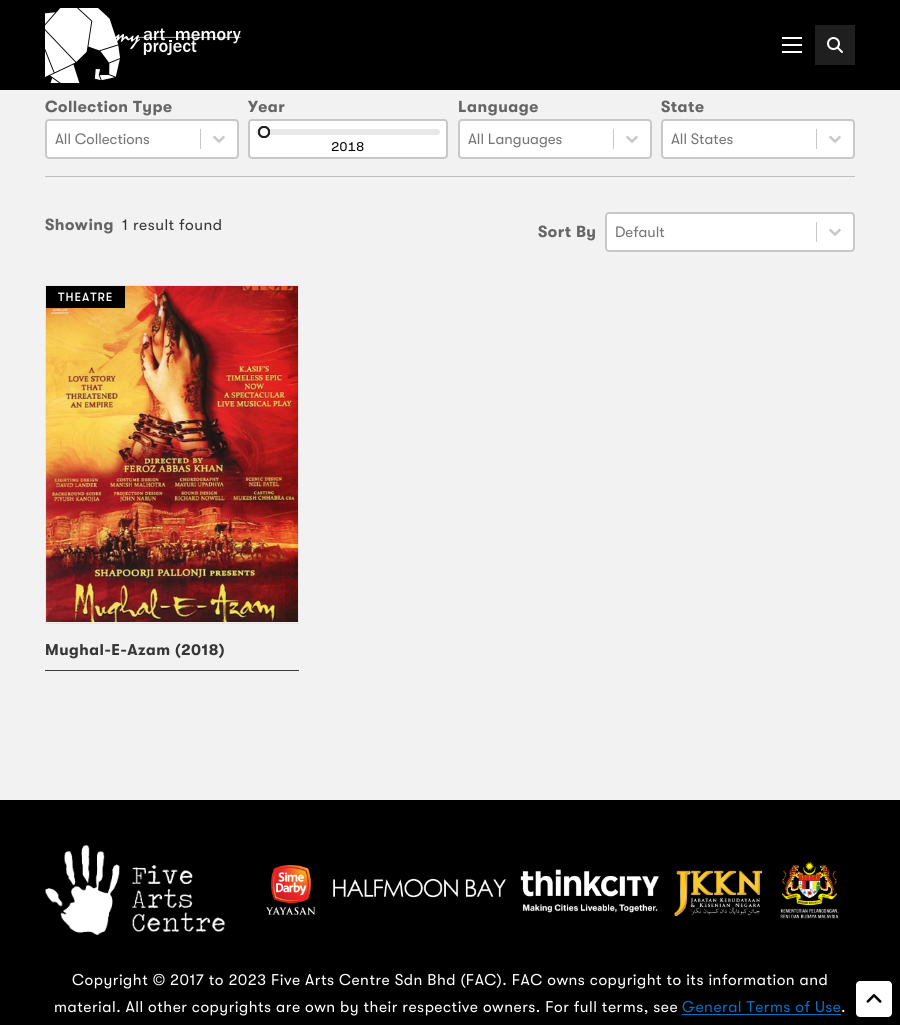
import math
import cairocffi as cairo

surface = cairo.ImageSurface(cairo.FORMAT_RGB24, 900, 1025)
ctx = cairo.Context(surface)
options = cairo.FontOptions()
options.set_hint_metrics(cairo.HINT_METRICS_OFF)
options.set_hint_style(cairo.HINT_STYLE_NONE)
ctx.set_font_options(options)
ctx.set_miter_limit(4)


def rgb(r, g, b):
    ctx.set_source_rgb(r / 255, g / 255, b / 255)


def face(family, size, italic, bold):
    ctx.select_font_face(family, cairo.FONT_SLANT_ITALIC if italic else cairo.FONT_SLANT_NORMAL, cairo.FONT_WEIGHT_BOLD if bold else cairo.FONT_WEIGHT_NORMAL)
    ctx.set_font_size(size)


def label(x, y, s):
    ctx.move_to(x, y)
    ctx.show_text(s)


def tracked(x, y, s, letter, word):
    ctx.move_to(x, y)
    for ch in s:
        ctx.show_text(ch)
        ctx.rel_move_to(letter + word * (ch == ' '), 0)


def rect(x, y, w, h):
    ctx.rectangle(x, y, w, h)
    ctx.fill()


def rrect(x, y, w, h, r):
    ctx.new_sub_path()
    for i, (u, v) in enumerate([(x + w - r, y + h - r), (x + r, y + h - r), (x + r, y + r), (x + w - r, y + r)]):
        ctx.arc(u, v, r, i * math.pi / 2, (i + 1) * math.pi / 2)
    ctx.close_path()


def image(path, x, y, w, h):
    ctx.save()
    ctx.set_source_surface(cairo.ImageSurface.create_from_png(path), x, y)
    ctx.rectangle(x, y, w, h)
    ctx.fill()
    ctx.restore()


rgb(242, 242, 242)
ctx.paint()
rgb(0, 0, 0)
rect(0, 0, 900, 90)
image('image0.png', 45, 8, 196, 75)
rgb(255, 255, 255)
rect(782, 37, 20, 2)
rect(782, 44, 20, 2)
rect(782, 51, 20, 2)
rgb(31, 31, 31)
rect(815, 25, 40, 40)
image('image1.png', 827, 37, 16, 16)
face('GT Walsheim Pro', 16, 0, 1)
rgb(101, 101, 101)
tracked(45, 112, 'Collection Type', 0.5, 0)
rgb(255, 255, 255)
rrect(46, 120, 192, 38, 3)
ctx.fill_preserve()
rgb(200, 200, 200)
ctx.stroke()
face('GT Walsheim Pro', 15, 0, 0)
rgb(117, 117, 117)
label(55, 144, 'All Collections')
rgb(200, 200, 200)
rect(200, 129, 1, 20)
image('image2.png', 213, 135, 12, 8)
face('GT Walsheim Pro', 16, 0, 1)
rgb(101, 101, 101)
tracked(248, 112, 'Year', 0.5, 0)
rgb(255, 255, 255)
rrect(249, 120, 198, 38, 3)
ctx.fill_preserve()
rgb(199, 199, 199)
ctx.stroke()
rgb(232, 232, 232)
rrect(256, 129, 184, 6, 3)
ctx.fill()
ctx.arc(264, 132, 5, 0, 2 * math.pi)
rgb(31, 31, 31)
ctx.stroke()
rgb(255, 255, 255)
ctx.arc(264, 132, 5, 0, 2 * math.pi)
ctx.fill_preserve()
rgb(31, 31, 31)
ctx.stroke()
face('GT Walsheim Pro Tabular', 13, 0, 0)
rgb(0, 0, 0)
label(331, 151, '2018')
face('GT Walsheim Pro', 16, 0, 1)
rgb(101, 101, 101)
tracked(458, 112, 'Language', 0.5, 0)
rgb(255, 255, 255)
rrect(459, 120, 192, 38, 3)
ctx.fill_preserve()
rgb(200, 200, 200)
ctx.stroke()
face('GT Walsheim Pro', 15, 0, 0)
rgb(117, 117, 117)
label(468, 144, 'All Languages')
rgb(200, 200, 200)
rect(613, 129, 1, 20)
image('image2.png', 626, 135, 12, 8)
face('GT Walsheim Pro', 16, 0, 1)
rgb(101, 101, 101)
tracked(661, 112, 'State', 0.5, 0)
rgb(255, 255, 255)
rrect(662, 120, 192, 38, 3)
ctx.fill_preserve()
rgb(200, 200, 200)
ctx.stroke()
face('GT Walsheim Pro', 15, 0, 0)
rgb(117, 117, 117)
label(671, 144, 'All States')
rgb(200, 200, 200)
rect(816, 129, 1, 20)
image('image2.png', 829, 135, 12, 8)
rgb(191, 191, 191)
rect(45, 176, 810, 1)
face('GT Walsheim Pro', 16, 0, 1)
rgb(101, 101, 101)
tracked(45, 230, 'Showing', 0.5, 0)
face('GT Walsheim Pro', 15.6, 0, 0)
rgb(54, 54, 54)
tracked(122, 230, '1 result found', 0.5, 0)
face('GT Walsheim Pro', 16, 0, 1)
rgb(101, 101, 101)
tracked(538, 237, 'Sort By', 0.5, 0)
rgb(255, 255, 255)
rrect(606, 213, 248, 38, 3)
ctx.fill_preserve()
rgb(200, 200, 200)
ctx.stroke()
face('GT Walsheim Pro', 15, 0, 0)
rgb(117, 117, 117)
label(615, 237, 'Default')
rgb(200, 200, 200)
rect(816, 222, 1, 20)
image('image2.png', 829, 228, 12, 8)
ctx.rectangle(45.5, 285.5, 253, 338)
rgb(230, 230, 230)
ctx.set_line_width(1)
ctx.stroke()
image('image3.png', 46, 286, 252, 336)
rgb(0, 0, 0)
rect(46, 286, 79, 22)
face('GT Walsheim Pro Medium', 12, 0, 0)
rgb(255, 255, 255)
tracked(58, 301, 'THEATRE', 1, 0)
rgb(60, 60, 60)
rect(45, 670, 254, 1)
face('GT Walsheim Pro', 15.6, 0, 1)
rgb(54, 54, 54)
tracked(45, 655, 'Mughal-E-Azam (2018)', 0.5, 0)
rgb(0, 0, 0)
rect(0, 800, 900, 225)
image('image4.png', 45, 845, 180, 90)
image('image5.png', 266, 861, 573, 58)
face('GT Walsheim Pro', 15.6, 0, 0)
rgb(255, 255, 255)
tracked(72, 985, 'Copyright © 2017 to 2023 Five Arts Centre Sdn Bhd (FAC). FAC owns copyright to its information and', 0.5, 0)
tracked(54, 1012, 'material. All other copyrights are own by their respective owners. For full terms, see', 0.5, 0)
rgb(6, 111, 190)
tracked(682, 1012, 'General Terms of Use', 0.5, 0)
rect(682, 1014, 159, 1)
rgb(255, 255, 255)
tracked(841, 1012, '.', 0.5, 0)
rrect(856, 981, 36, 36, 4)
ctx.fill()
image('image6.png', 866, 994, 16, 9)
surface.write_to_png('render.png')
